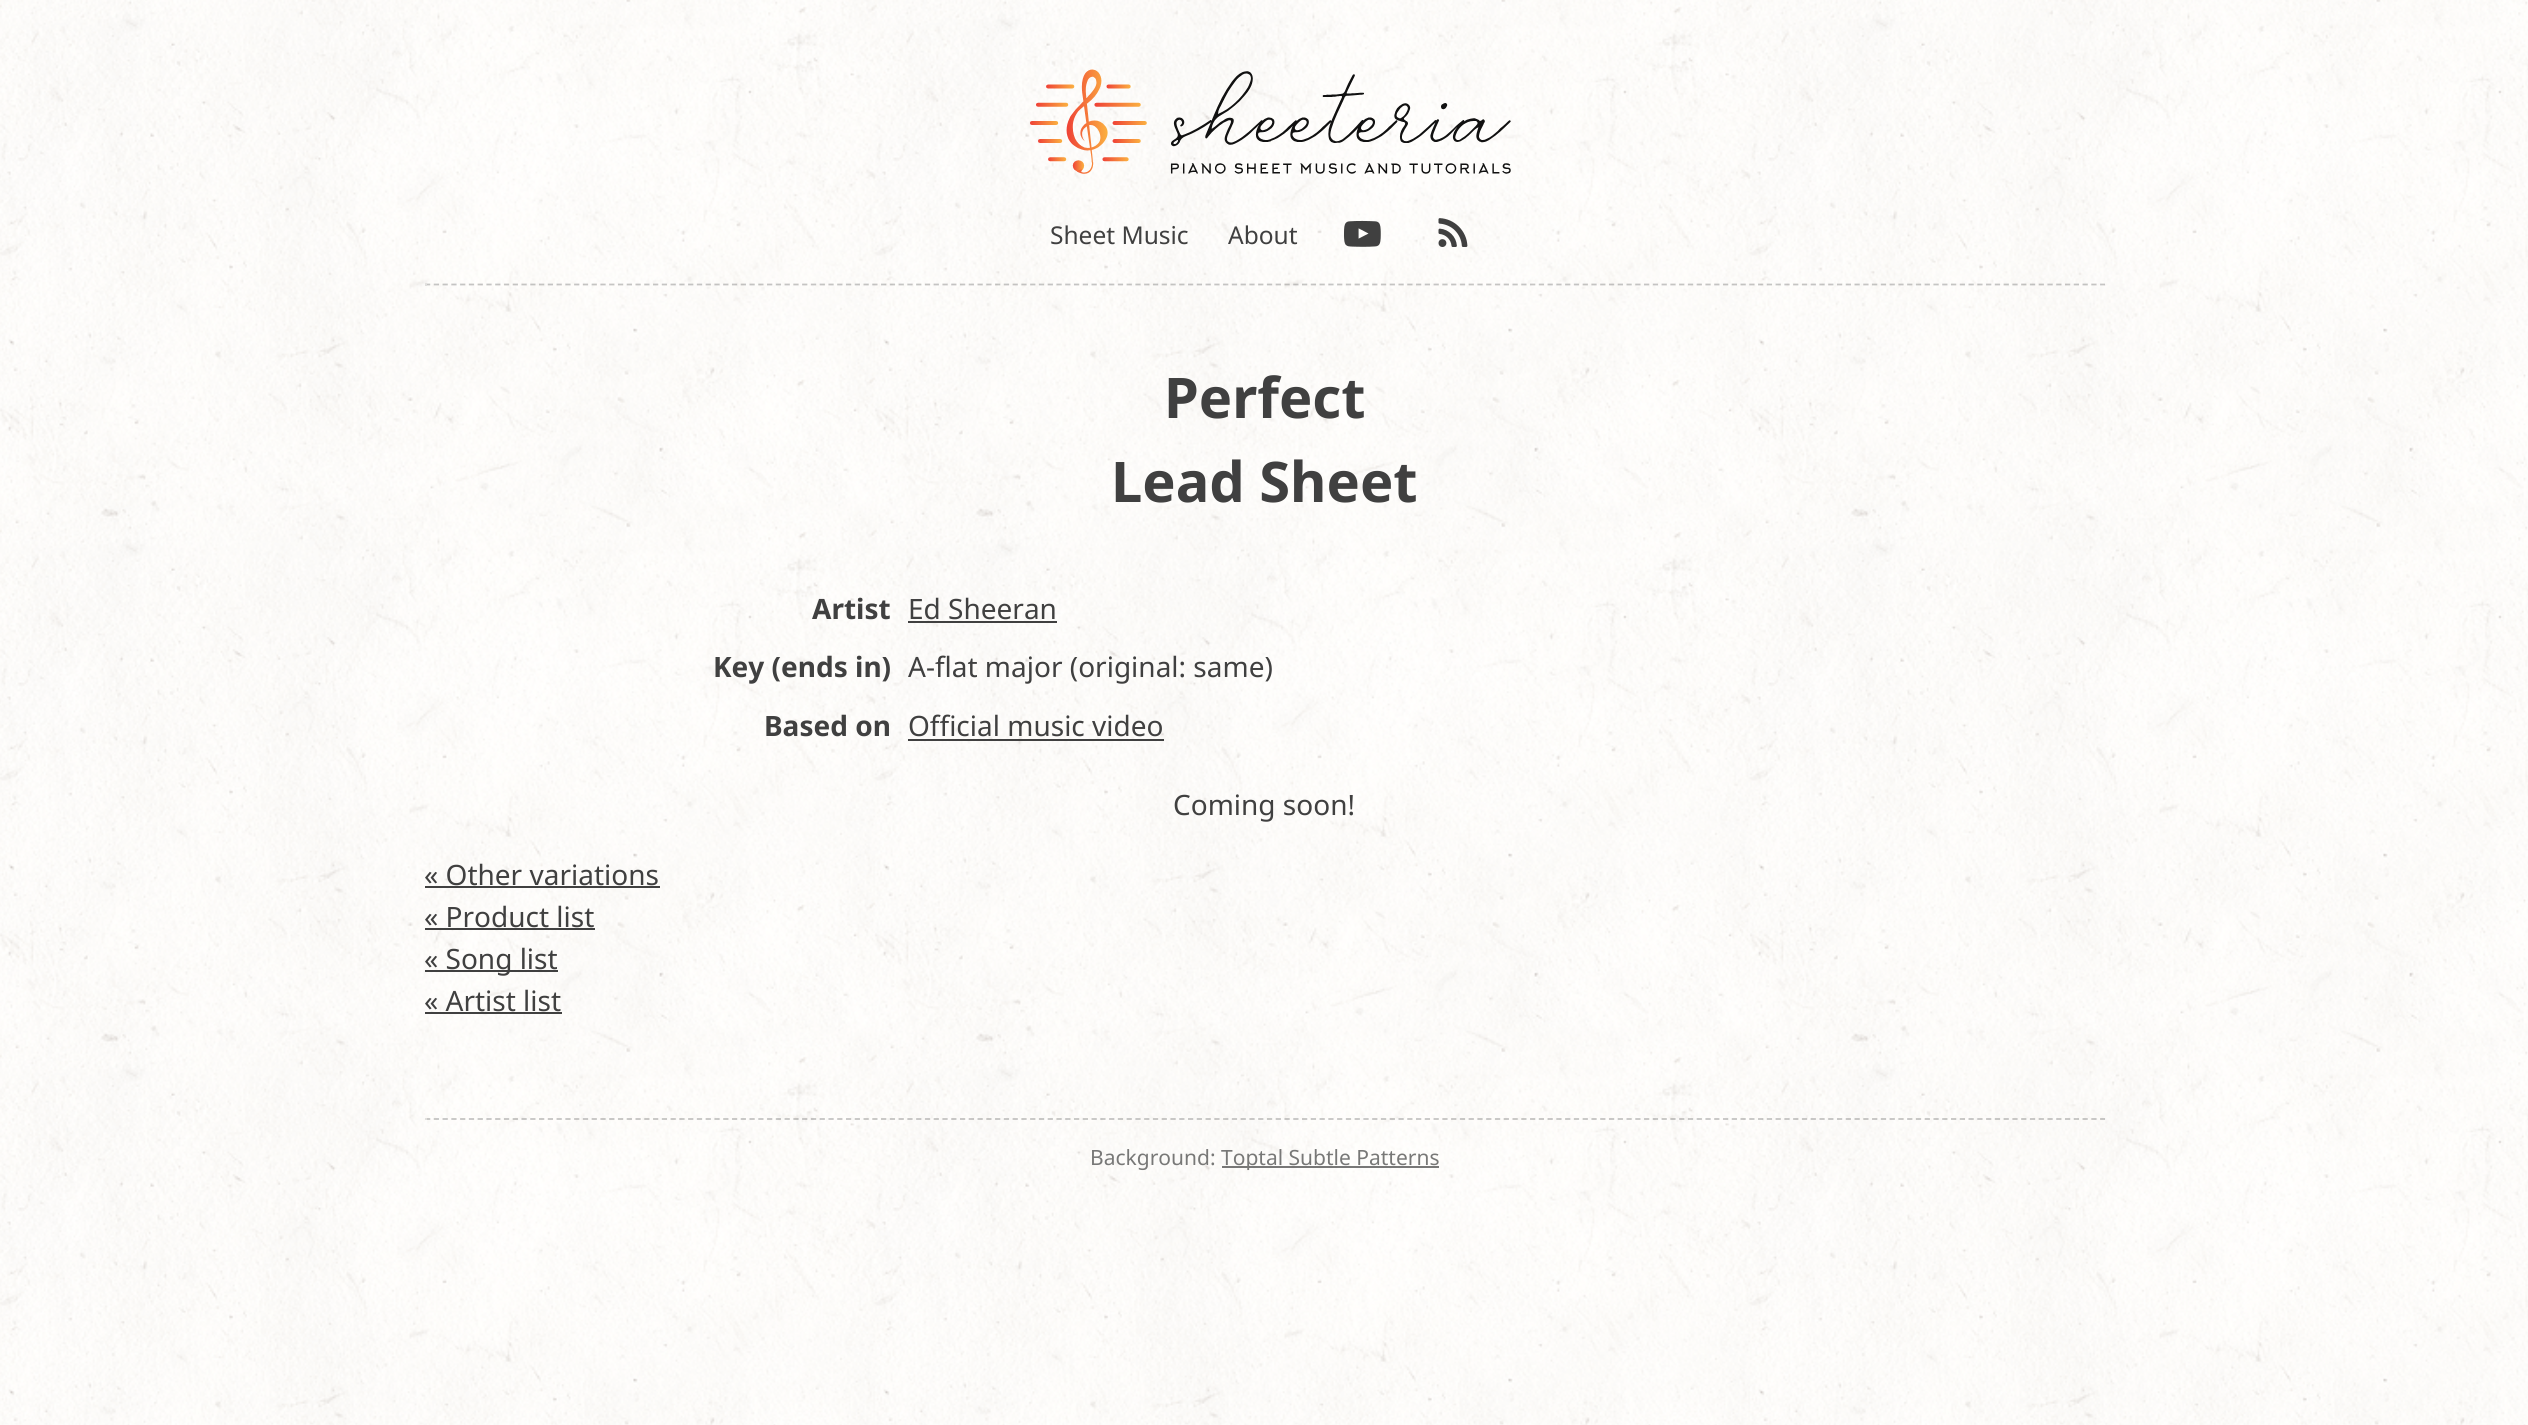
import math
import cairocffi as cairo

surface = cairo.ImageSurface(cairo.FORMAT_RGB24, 2528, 1425)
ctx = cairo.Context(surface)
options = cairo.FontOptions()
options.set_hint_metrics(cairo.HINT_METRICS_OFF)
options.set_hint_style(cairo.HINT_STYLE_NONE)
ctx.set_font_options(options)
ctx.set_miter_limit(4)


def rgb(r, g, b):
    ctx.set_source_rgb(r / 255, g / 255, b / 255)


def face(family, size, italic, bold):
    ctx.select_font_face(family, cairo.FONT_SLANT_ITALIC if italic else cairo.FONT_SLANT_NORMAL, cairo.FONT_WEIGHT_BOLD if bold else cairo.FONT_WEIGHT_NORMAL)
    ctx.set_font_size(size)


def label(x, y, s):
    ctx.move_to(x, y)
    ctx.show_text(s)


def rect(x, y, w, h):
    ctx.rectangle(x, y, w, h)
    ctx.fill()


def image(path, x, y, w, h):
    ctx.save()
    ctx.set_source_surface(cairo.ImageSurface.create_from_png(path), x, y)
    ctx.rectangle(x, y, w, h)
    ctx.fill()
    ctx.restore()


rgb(255, 255, 255)
ctx.paint()
image('image0.png', 0, 0, 2528, 1425)
image('image1.png', 1030, 69, 481, 105)
face('Noto Sans', 24.5, 0, 0)
rgb(64, 64, 64)
label(1050, 244, 'Sheet Music')
label(1228, 244, 'About')
image('image2.png', 1344, 220, 37, 27)
image('image3.png', 1438, 218, 30, 29)
ctx.set_source_rgba(0.933, 0.933, 0.933, 0.3)
rect(2104, 284, 2, 2)
ctx.new_path()
ctx.move_to(425, 284.5)
ctx.line_to(2105, 284.5)
ctx.set_source_rgba(0.251, 0.251, 0.251, 0.3)
ctx.set_line_width(1.8)
ctx.set_dash([5.25, 3.52])
ctx.stroke()
rgb(223, 223, 221)
rect(425, 284, 2, 2)
face('Noto Sans', 56, 0, 1)
rgb(64, 64, 64)
label(1164, 418, 'Perfect')
label(1111, 502, 'Lead Sheet')
face('Noto Sans', 28, 0, 1)
label(812, 619, 'Artist')
face('Noto Sans', 28, 0, 0)
label(908, 619, 'Ed Sheeran')
rect(908, 621, 149, 2)
face('Noto Sans', 28, 0, 1)
label(713, 677, 'Key (ends in)')
face('Noto Sans', 28, 0, 0)
label(908, 677, 'A-flat major (original: same)')
face('Noto Sans', 28, 0, 1)
label(764, 736, 'Based on')
face('Noto Sans', 28, 0, 0)
label(908, 736, 'Official music video')
rect(908, 739, 256, 2)
label(1173, 815, 'Coming soon!')
label(424, 885, '« Other variations')
rect(425, 886, 235, 2)
label(424, 927, '« Product list')
rect(425, 928, 170, 2)
rect(425, 970, 133, 2)
label(424, 969, '« Song list')
label(424, 1011, '« Artist list')
rect(425, 1012, 137, 2)
rgb(247, 246, 245)
rect(2104, 1118, 2, 2)
ctx.new_path()
ctx.move_to(425, 1119)
ctx.line_to(2105, 1119)
ctx.set_source_rgba(0.251, 0.251, 0.251, 0.3)
ctx.stroke()
rgb(225, 224, 222)
rect(425, 1118, 2, 2)
face('Noto Sans', 21, 0, 0)
rgb(120, 120, 119)
label(1090, 1165, 'Background:')
ctx.set_source_rgba(0.251, 0.251, 0.251, 0.7)
rect(1222, 1166, 217, 2)
rgb(120, 120, 119)
label(1221, 1165, 'Toptal Subtle Patterns')
surface.write_to_png('render.png')
